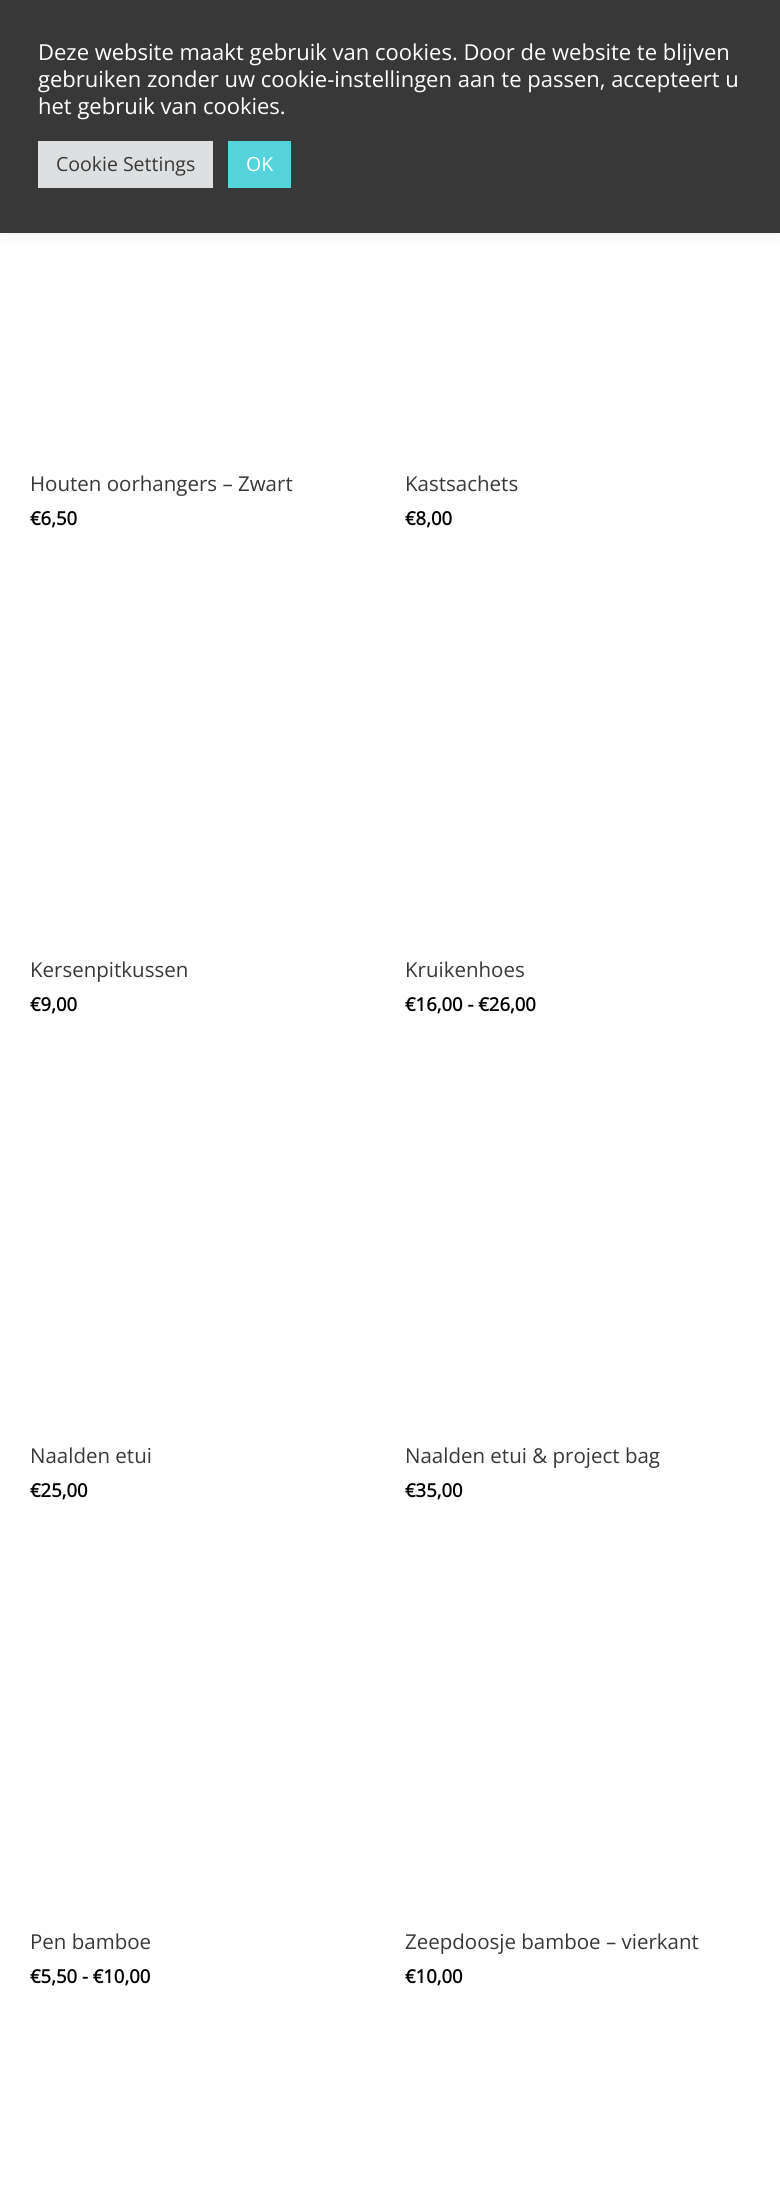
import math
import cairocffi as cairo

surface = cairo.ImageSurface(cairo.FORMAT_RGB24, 780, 2206)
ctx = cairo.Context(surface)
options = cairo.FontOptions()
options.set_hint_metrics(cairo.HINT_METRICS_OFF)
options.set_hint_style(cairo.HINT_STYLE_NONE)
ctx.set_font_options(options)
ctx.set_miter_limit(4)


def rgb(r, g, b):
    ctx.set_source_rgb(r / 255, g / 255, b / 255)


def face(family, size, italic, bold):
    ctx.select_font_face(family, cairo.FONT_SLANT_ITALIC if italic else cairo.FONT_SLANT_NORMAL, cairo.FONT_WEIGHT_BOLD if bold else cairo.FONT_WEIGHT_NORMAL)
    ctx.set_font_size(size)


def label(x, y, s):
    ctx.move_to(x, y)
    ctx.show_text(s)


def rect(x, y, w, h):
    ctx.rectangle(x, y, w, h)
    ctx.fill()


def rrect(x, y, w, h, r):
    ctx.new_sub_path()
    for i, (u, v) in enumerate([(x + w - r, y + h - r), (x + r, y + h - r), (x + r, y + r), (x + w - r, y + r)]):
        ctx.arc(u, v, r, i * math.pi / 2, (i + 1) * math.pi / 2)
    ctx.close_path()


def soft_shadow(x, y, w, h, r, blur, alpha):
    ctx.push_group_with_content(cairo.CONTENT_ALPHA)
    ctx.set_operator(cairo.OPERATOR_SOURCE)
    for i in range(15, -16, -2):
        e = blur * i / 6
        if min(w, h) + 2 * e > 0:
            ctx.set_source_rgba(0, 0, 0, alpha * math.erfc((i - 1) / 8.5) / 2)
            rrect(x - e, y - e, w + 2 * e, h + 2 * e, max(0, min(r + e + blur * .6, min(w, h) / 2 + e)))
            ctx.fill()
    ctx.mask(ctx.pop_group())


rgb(255, 255, 255)
ctx.paint()
rgb(172, 171, 171)
soft_shadow(0, -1, 780, 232, 0, 7.5, 0.3)
rgb(56, 56, 56)
rect(0, 0, 780, 233)
face('Open Sans', 22, 0, 0)
rgb(255, 255, 255)
label(38, 60, 'Deze website maakt gebruik van cookies. Door de website te blijven')
label(38, 87, 'gebruiken zonder uw cookie-instellingen aan te passen, accepteert u')
label(38, 114, 'het gebruik van cookies.')
rgb(222, 223, 224)
rect(38, 141, 175, 47)
face('Open Sans', 19.5, 0, 0)
rgb(56, 56, 56)
label(56, 171, 'Cookie Settings')
rgb(85, 211, 219)
rect(228, 141, 63, 47)
rgb(255, 255, 255)
label(246, 171, 'OK')
face('Open Sans', 20.5, 0, 0)
rgb(56, 56, 56)
label(30, 491, 'Houten oorhangers – Zwart')
face('Open Sans', 18.5, 0, 1)
rgb(0, 0, 0)
label(30, 525, '€6,50')
face('Open Sans', 20.5, 0, 0)
rgb(56, 56, 56)
label(405, 491, 'Kastsachets')
face('Open Sans', 18.5, 0, 1)
rgb(0, 0, 0)
label(405, 525, '€8,00')
face('Open Sans', 20.5, 0, 0)
rgb(56, 56, 56)
label(30, 977, 'Kersenpitkussen')
face('Open Sans', 18.5, 0, 1)
rgb(0, 0, 0)
label(30, 1011, '€9,00')
face('Open Sans', 20.5, 0, 0)
rgb(56, 56, 56)
label(405, 977, 'Kruikenhoes')
face('Open Sans', 18.5, 0, 1)
rgb(0, 0, 0)
label(405, 1011, '€16,00 - €26,00')
face('Open Sans', 20.5, 0, 0)
rgb(56, 56, 56)
label(30, 1463, 'Naalden etui')
face('Open Sans', 18.5, 0, 1)
rgb(0, 0, 0)
label(30, 1497, '€25,00')
face('Open Sans', 20.5, 0, 0)
rgb(56, 56, 56)
label(405, 1463, 'Naalden etui & project bag')
face('Open Sans', 18.5, 0, 1)
rgb(0, 0, 0)
label(405, 1497, '€35,00')
face('Open Sans', 20.5, 0, 0)
rgb(56, 56, 56)
label(30, 1949, 'Pen bamboe')
face('Open Sans', 18.5, 0, 1)
rgb(0, 0, 0)
label(30, 1983, '€5,50 - €10,00')
face('Open Sans', 20.5, 0, 0)
rgb(56, 56, 56)
label(405, 1949, 'Zeepdoosje bamboe – vierkant')
face('Open Sans', 18.5, 0, 1)
rgb(0, 0, 0)
label(405, 1983, '€10,00')
surface.write_to_png('render.png')
